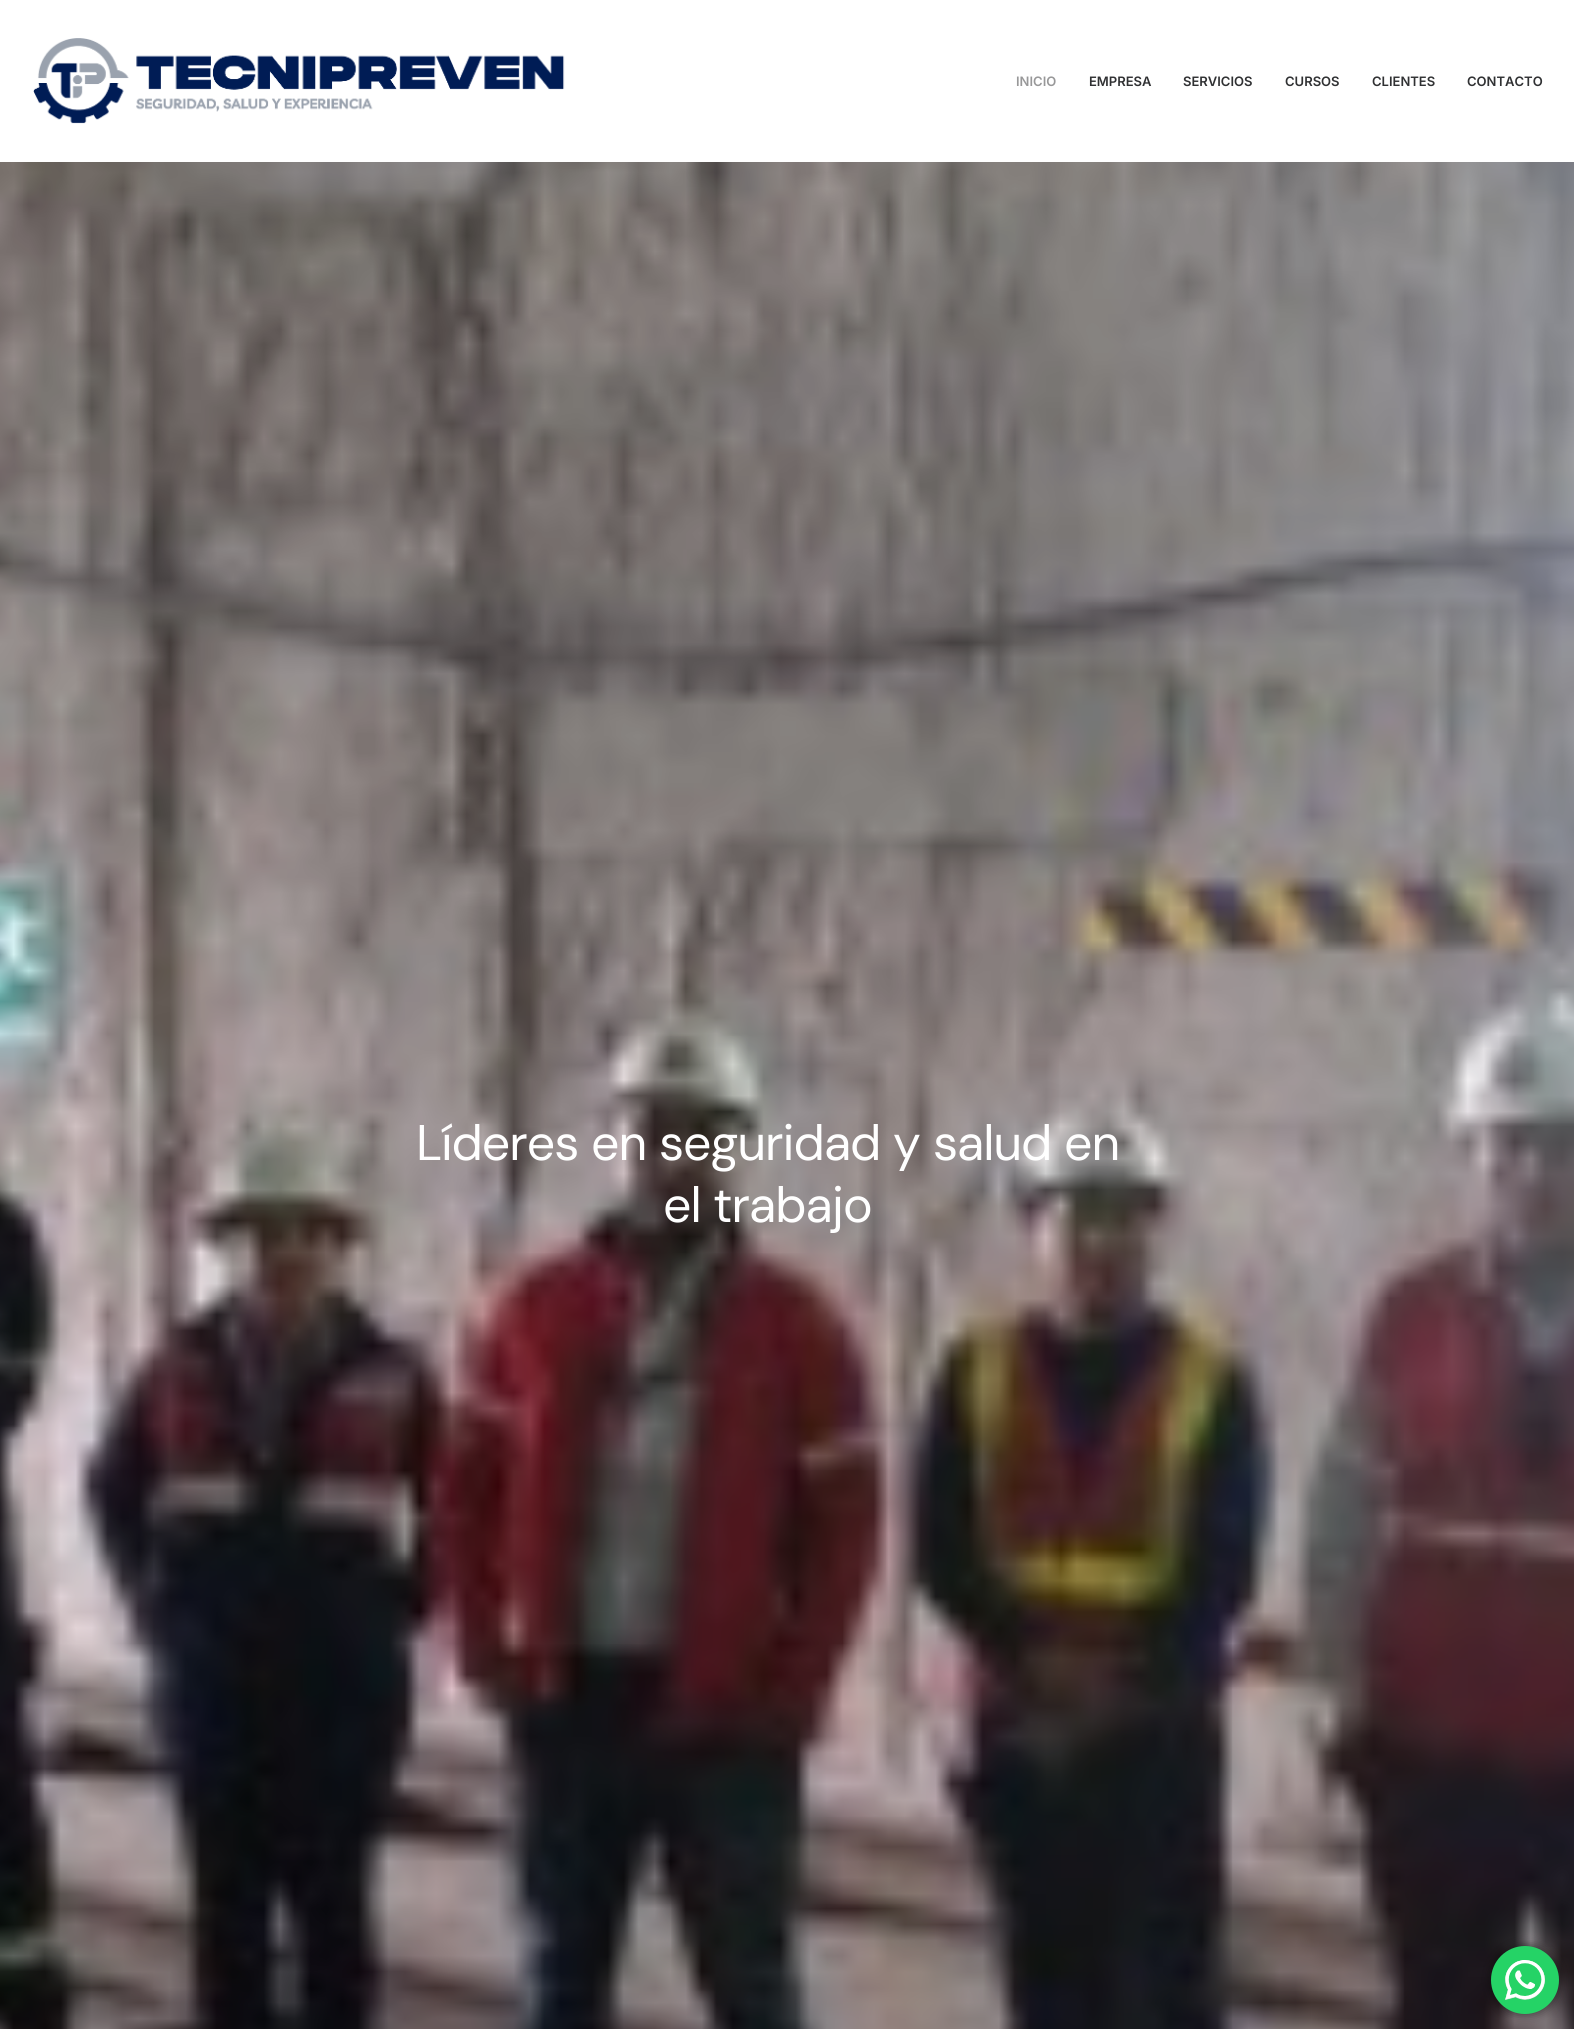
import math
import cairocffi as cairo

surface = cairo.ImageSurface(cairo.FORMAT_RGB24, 1574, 2029)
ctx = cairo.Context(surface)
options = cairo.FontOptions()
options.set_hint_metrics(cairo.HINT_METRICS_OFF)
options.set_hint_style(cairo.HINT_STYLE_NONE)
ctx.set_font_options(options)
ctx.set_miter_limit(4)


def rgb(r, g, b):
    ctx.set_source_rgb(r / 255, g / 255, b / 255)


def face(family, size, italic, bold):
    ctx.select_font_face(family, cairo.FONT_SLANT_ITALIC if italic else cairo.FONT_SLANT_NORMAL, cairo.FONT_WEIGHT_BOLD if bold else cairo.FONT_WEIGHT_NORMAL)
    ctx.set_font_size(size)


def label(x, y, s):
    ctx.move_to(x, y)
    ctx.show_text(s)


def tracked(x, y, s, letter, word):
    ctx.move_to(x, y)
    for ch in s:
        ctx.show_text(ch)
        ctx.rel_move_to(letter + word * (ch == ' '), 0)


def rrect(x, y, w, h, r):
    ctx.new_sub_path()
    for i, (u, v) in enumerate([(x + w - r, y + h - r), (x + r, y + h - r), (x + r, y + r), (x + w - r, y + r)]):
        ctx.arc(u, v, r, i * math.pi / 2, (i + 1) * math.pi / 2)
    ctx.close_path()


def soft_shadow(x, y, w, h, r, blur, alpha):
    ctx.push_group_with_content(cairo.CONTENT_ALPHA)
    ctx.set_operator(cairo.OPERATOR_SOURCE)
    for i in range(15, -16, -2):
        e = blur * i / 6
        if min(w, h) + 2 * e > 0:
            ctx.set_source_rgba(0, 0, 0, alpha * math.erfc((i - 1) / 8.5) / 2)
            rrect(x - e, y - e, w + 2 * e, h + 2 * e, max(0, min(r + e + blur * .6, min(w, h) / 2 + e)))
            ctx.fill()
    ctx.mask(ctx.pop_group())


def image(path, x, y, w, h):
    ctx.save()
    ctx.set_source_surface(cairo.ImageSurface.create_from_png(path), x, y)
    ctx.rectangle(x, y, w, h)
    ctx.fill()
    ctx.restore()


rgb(255, 255, 255)
ctx.paint()
image('image0.png', 33, 38, 532, 86)
face('Inter SemiBold', 13, 0, 0)
rgb(152, 152, 153)
label(1016, 86, 'INICIO')
rgb(48, 49, 51)
label(1089, 86, 'EMPRESA')
label(1183, 86, 'SERVICIOS')
label(1285, 86, 'CURSOS')
label(1372, 86, 'CLIENTES')
label(1467, 86, 'CONTACTO')
image('image1.png', 0, 162, 1574, 1867)
face('DM Sans', 50, 0, 0)
rgb(255, 255, 255)
tracked(416, 1160, 'Líderes', -1, 0)
tracked(591, 1160, 'en', -1, 0)
tracked(659, 1160, 'seguridad', -1, 0)
tracked(893, 1160, 'y', -1, 0)
tracked(933, 1160, 'salud', -1, 0)
tracked(1064, 1160, 'en', -1, 0)
tracked(663, 1222, 'el', -1, 0)
tracked(713, 1222, 'trabajo', -1, 0)
rgb(0, 0, 0)
soft_shadow(1491, 1946, 68, 68, 34, 5.5, 0.5)
rgb(37, 211, 102)
ctx.arc(1525, 1980, 34, 0, 2 * math.pi)
ctx.fill()
image('image2.png', 1505, 1960, 40, 40)
surface.write_to_png('render.png')
